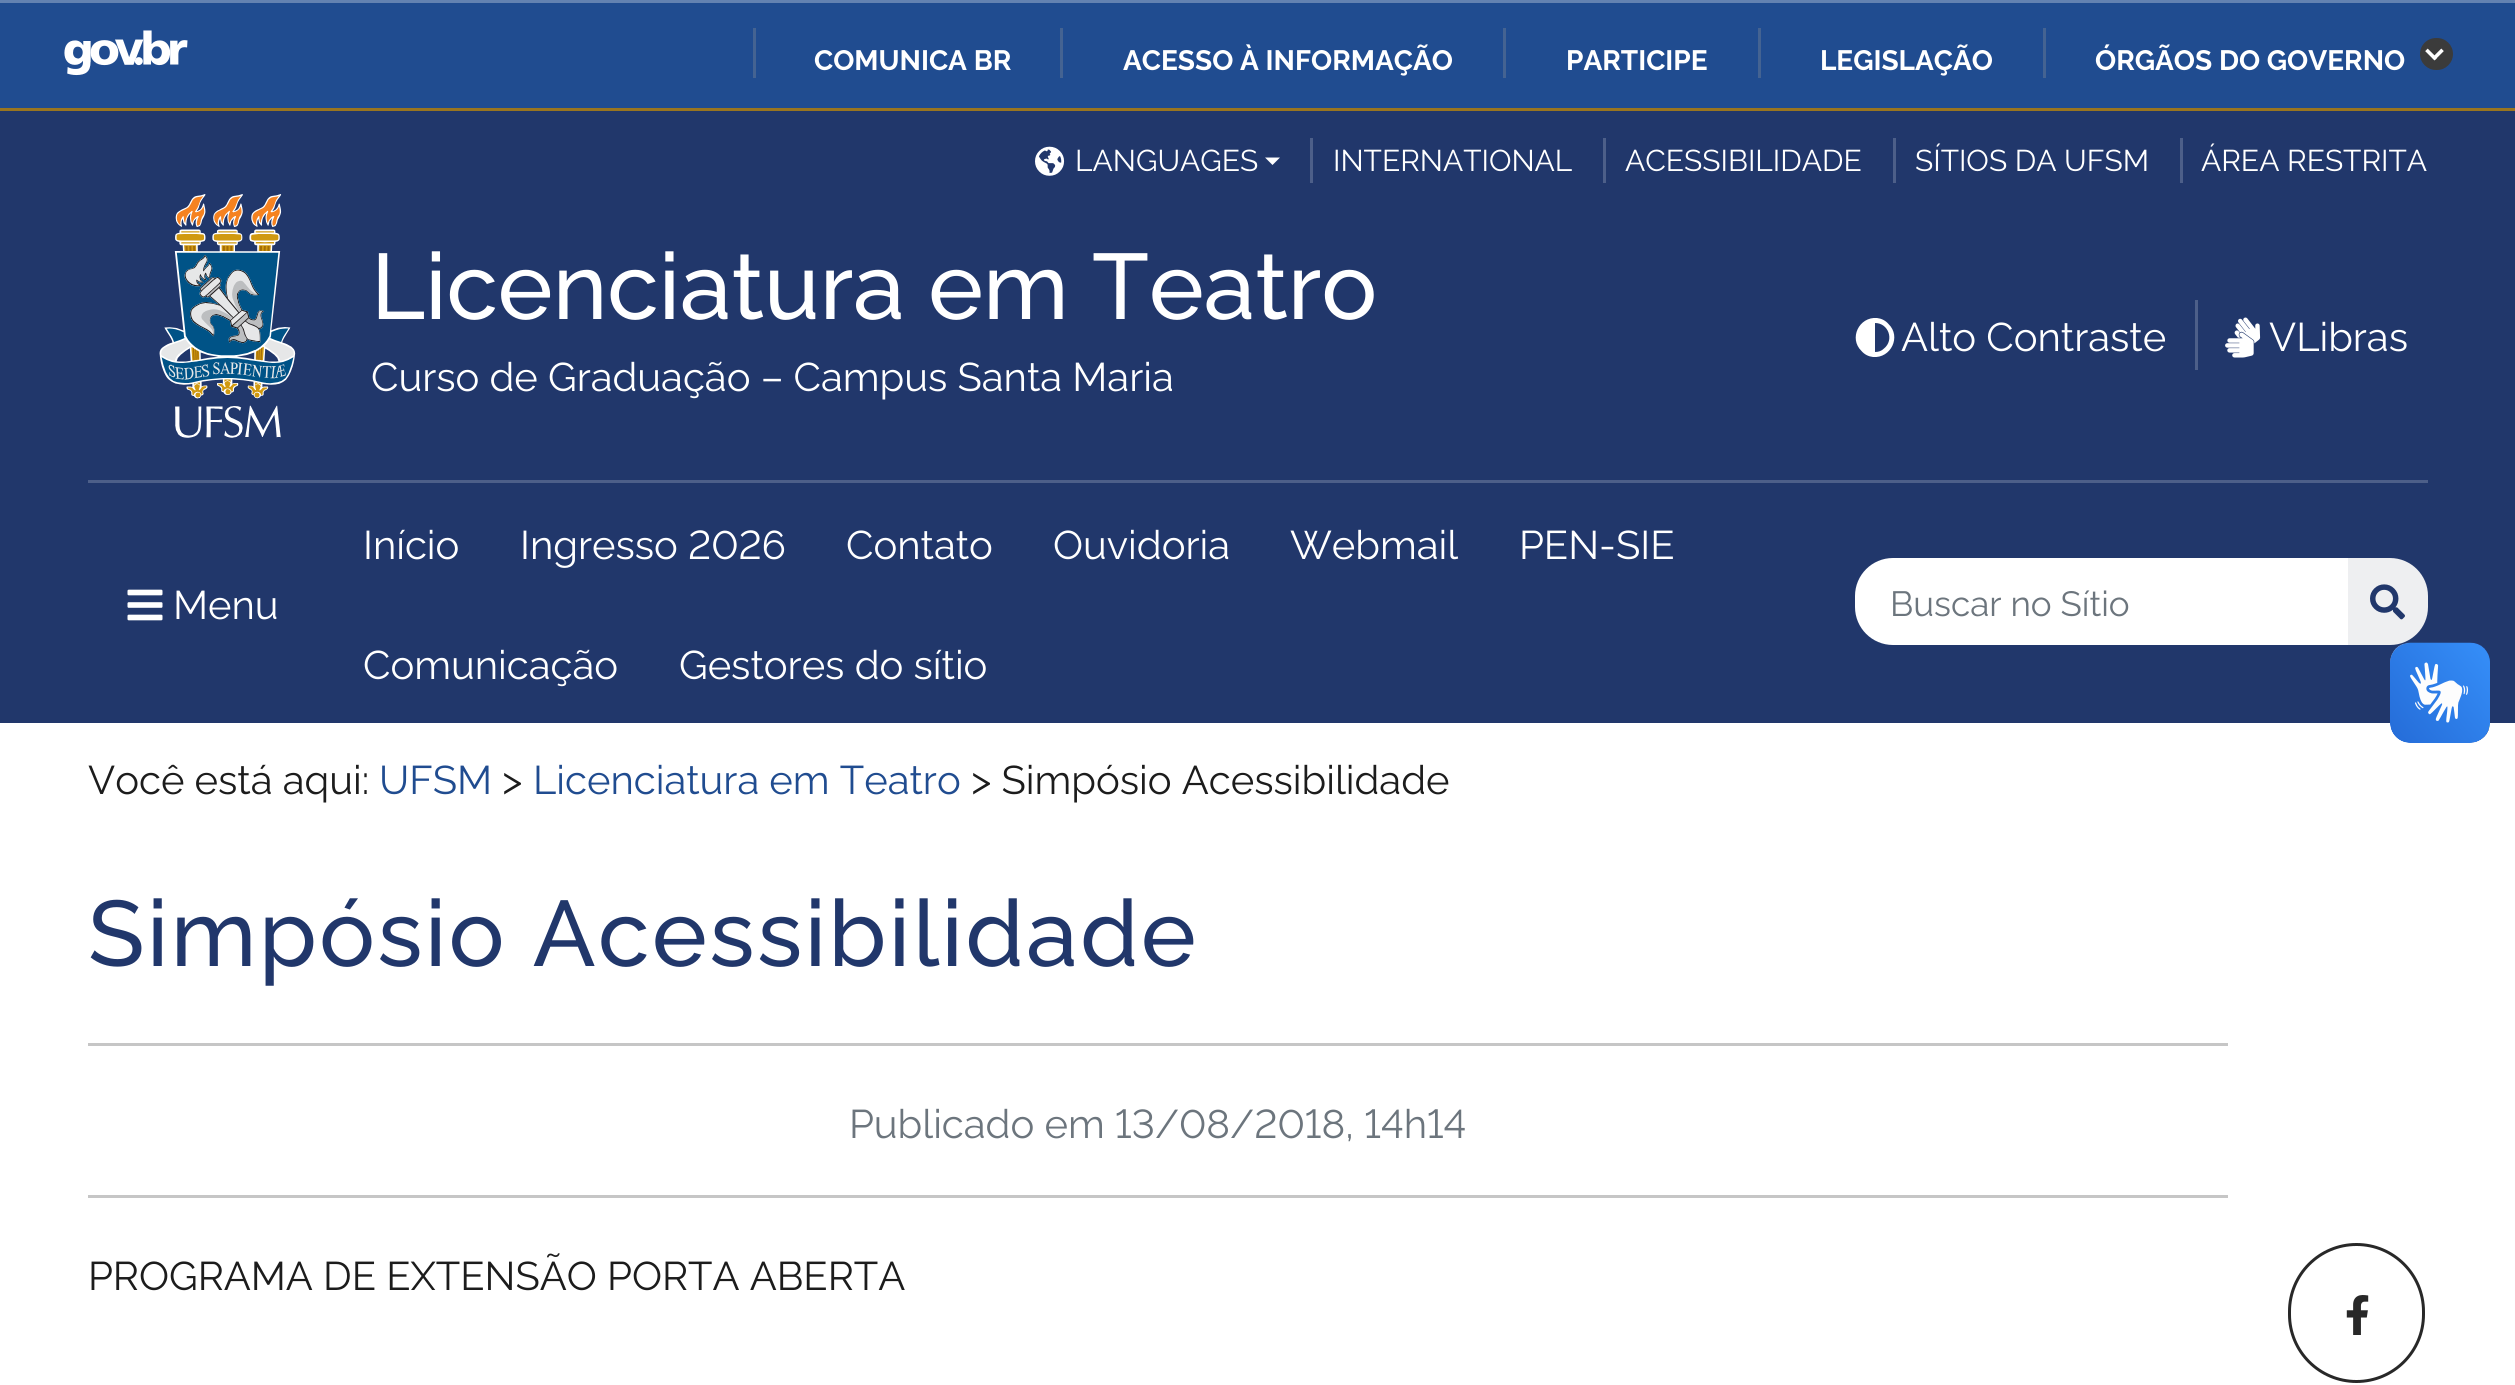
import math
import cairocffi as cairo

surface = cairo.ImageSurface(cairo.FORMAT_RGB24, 2515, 1385)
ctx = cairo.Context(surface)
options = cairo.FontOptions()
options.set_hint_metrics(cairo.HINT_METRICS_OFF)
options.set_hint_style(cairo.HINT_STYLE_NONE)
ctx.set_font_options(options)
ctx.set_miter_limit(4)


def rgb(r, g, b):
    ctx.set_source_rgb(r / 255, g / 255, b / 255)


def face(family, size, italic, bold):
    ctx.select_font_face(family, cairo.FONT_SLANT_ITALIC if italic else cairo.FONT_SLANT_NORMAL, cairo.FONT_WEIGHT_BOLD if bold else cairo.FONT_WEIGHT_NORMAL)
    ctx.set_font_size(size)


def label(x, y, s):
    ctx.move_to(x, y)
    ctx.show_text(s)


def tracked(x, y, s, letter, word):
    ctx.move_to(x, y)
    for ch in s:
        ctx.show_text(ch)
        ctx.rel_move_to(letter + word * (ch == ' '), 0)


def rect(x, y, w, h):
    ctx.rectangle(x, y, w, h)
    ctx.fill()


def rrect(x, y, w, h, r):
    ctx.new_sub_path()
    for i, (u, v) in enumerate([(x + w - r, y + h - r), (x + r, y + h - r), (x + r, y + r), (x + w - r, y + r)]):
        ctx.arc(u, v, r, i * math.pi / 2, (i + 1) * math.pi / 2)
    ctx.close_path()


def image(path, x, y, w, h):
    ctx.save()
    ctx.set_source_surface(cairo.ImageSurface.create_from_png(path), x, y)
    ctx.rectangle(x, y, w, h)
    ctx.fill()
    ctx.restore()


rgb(255, 255, 255)
ctx.paint()
rgb(32, 76, 144)
rect(0, 3, 2515, 105)
rgb(99, 130, 177)
rect(0, 0, 2515, 3)
image('image0.png', 64, 30, 124, 46)
rgb(68, 99, 146)
rect(753, 28, 3, 50)
face('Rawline', 28, 0, 1)
rgb(255, 255, 255)
label(814, 70, 'COMUNICA BR')
rgb(68, 99, 146)
rect(1060, 28, 3, 50)
rgb(255, 255, 255)
label(1123, 70, 'ACESSO À INFORMAÇÃO')
rgb(68, 99, 146)
rect(1503, 28, 3, 50)
rgb(255, 255, 255)
label(1566, 70, 'PARTICIPE')
rgb(68, 99, 146)
rect(1758, 28, 3, 50)
rgb(255, 255, 255)
label(1820, 70, 'LEGISLAÇÃO')
rgb(68, 99, 146)
rect(2043, 28, 3, 50)
rgb(255, 255, 255)
label(2095, 70, 'ÓRGÃOS DO GOVERNO')
rgb(59, 59, 59)
rrect(2420, 38, 33, 32, 16)
ctx.fill()
image('image1.png', 2425, 48, 19, 13)
rgb(33, 55, 107)
rect(0, 111, 2515, 612)
rgb(153, 117, 32)
rect(0, 108, 2515, 3)
image('image2.png', 1035, 146, 30, 30)
face('Rawline', 30, 0, 0)
rgb(255, 255, 255)
label(1075, 171, 'LANGUAGES')
ctx.new_path()
ctx.move_to(1265, 157.5)
ctx.line_to(1280, 157.5)
ctx.line_to(1272.5, 165)
ctx.close_path()
ctx.fill()
rgb(77, 95, 137)
rect(1310, 138, 3, 45)
rgb(255, 255, 255)
label(1333, 171, 'INTERNATIONAL')
rgb(77, 95, 137)
rect(1603, 138, 3, 45)
rgb(255, 255, 255)
label(1625, 171, 'ACESSIBILIDADE')
rgb(77, 95, 137)
rect(1893, 138, 3, 45)
rgb(255, 255, 255)
label(1915, 171, 'SÍTIOS DA UFSM')
rgb(77, 95, 137)
rect(2180, 138, 3, 45)
rgb(255, 255, 255)
label(2201, 171, 'ÁREA RESTRITA')
rgb(77, 95, 137)
rect(88, 480, 2340, 3)
image('image3.png', 159, 194, 137, 244)
face('Rawline Medium', 92.75, 0, 0)
rgb(255, 255, 255)
label(371, 319, 'Licenciatura em Teatro')
face('Rawline', 40, 0, 0)
label(371, 391, 'Curso de Graduação – Campus Santa Maria')
ctx.new_path()
ctx.move_to(1861.5, 351)
ctx.curve_to(1848.5, 338.5, 1859, 316.5, 1877, 318)
ctx.curve_to(1881.5, 318.5, 1885.5, 320.5, 1888.5, 324)
ctx.curve_to(1901.5, 336.5, 1891, 358.5, 1873, 357)
ctx.curve_to(1868.5, 356.5, 1864.5, 354.5, 1861.5, 351)
ctx.close_path()
ctx.move_to(1875, 352)
ctx.curve_to(1878.5, 352, 1881.5, 351, 1884, 348.5)
ctx.curve_to(1894.5, 340, 1888.5, 323, 1875, 323)
ctx.close_path()
ctx.fill()
label(1901, 351, 'Alto Contraste')
rgb(77, 95, 137)
rect(2195, 300, 3, 70)
image('image4.png', 2225, 317, 36, 41)
rgb(255, 255, 255)
label(2269, 351, 'VLibras')
image('image5.png', 127, 589, 36, 32)
label(173, 619, 'Menu')
label(363, 559, 'Início')
label(520, 559, 'Ingresso 2026')
label(846, 559, 'Contato')
label(1053, 559, 'Ouvidoria')
label(1290, 559, 'Webmail')
label(1519, 559, 'PEN-SIE')
label(363, 679, 'Comunicação')
label(679, 679, 'Gestores do sítio')
ctx.save()
rrect(1855, 558, 573, 87, 38)
ctx.clip()
ctx.new_path()
ctx.move_to(1863, 558)
ctx.line_to(2350, 558)
ctx.line_to(2350, 645)
ctx.line_to(1863, 645)
ctx.curve_to(1857.5, 645, 1853, 640.5, 1853, 635)
ctx.line_to(1853, 568)
ctx.curve_to(1853, 562.5, 1857.5, 558, 1863, 558)
ctx.close_path()
ctx.fill()
ctx.restore()
face('Rawline', 35, 0, 0)
rgb(108, 117, 125)
label(1890, 616, 'Buscar no Sítio')
rgb(238, 239, 241)
ctx.new_path()
ctx.move_to(2348, 558)
ctx.line_to(2390, 558)
ctx.curve_to(2411, 558, 2428, 575, 2428, 596)
ctx.line_to(2428, 607)
ctx.curve_to(2428, 628, 2411, 645, 2390, 645)
ctx.line_to(2348, 645)
ctx.close_path()
ctx.fill()
image('image6.png', 2370, 584, 35, 36)
image('image7.png', 2390, 642, 100, 101)
image('image8.png', 2390, 643, 100, 100)
face('Rawline', 40, 0, 0)
rgb(28, 28, 28)
label(88, 794, 'Você está aqui:')
rgb(32, 76, 144)
label(379, 794, 'UFSM')
rgb(28, 28, 28)
label(502, 794, '>')
rgb(32, 76, 144)
label(533, 794, 'Licenciatura em Teatro')
rgb(28, 28, 28)
label(971, 794, '> Simpósio Acessibilidade')
face('Rawline Medium', 92.75, 0, 0)
rgb(33, 55, 107)
tracked(88, 966, 'Simpósio Acessibilidade', 2.5, 0)
rgb(198, 198, 198)
rect(88, 1043, 2140, 3)
face('Rawline', 40, 0, 0)
rgb(108, 117, 125)
label(849, 1138, 'Publicado em 13/08/2018, 14h14')
rgb(198, 198, 198)
rect(88, 1195, 2140, 3)
rgb(28, 28, 28)
label(88, 1290, 'PROGRAMA DE EXTENSÃO PORTA ABERTA')
rrect(2289.5, 1244.5, 134, 137, 67)
rgb(40, 40, 40)
ctx.set_line_width(3)
ctx.stroke()
image('image9.png', 2346, 1295, 23, 40)
surface.write_to_png('render.png')
